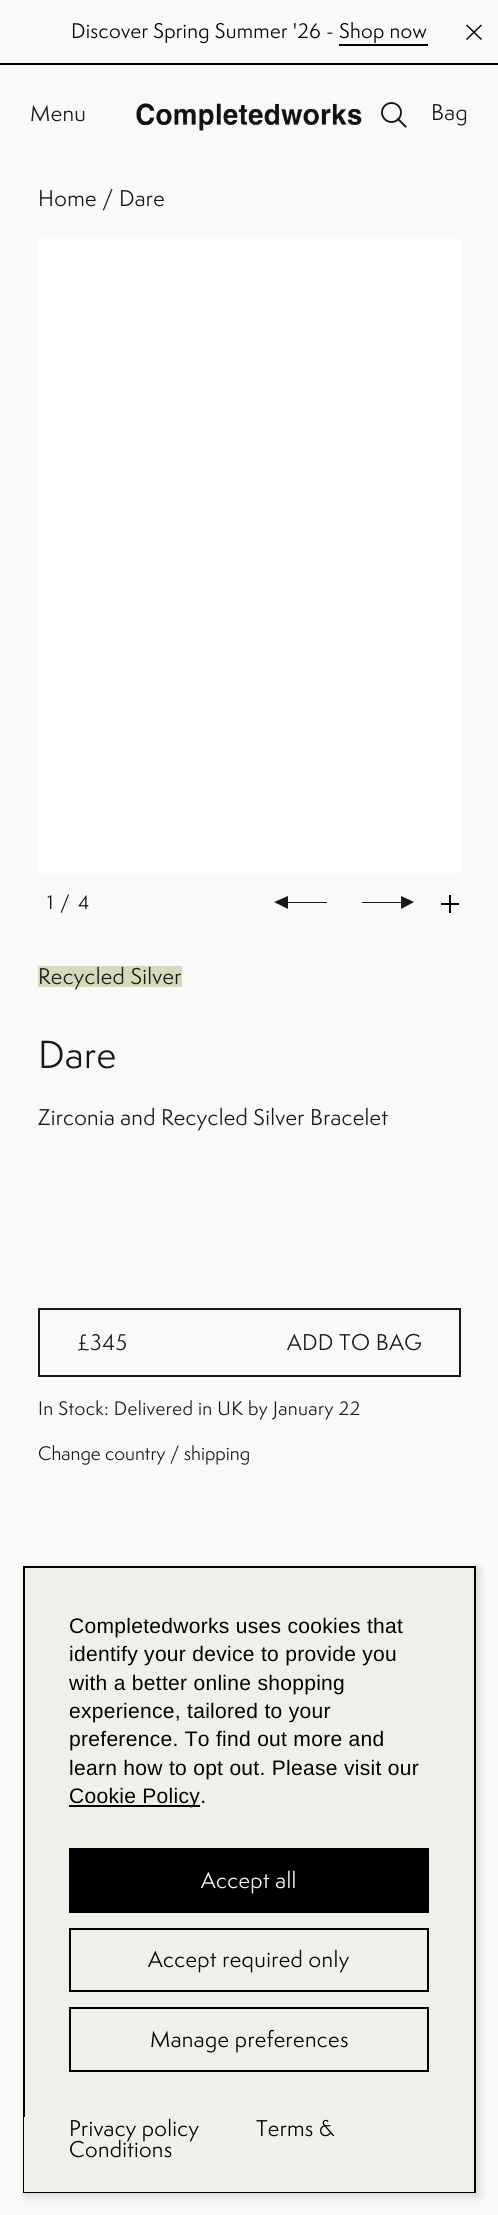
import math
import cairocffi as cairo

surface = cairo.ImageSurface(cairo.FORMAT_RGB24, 498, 2215)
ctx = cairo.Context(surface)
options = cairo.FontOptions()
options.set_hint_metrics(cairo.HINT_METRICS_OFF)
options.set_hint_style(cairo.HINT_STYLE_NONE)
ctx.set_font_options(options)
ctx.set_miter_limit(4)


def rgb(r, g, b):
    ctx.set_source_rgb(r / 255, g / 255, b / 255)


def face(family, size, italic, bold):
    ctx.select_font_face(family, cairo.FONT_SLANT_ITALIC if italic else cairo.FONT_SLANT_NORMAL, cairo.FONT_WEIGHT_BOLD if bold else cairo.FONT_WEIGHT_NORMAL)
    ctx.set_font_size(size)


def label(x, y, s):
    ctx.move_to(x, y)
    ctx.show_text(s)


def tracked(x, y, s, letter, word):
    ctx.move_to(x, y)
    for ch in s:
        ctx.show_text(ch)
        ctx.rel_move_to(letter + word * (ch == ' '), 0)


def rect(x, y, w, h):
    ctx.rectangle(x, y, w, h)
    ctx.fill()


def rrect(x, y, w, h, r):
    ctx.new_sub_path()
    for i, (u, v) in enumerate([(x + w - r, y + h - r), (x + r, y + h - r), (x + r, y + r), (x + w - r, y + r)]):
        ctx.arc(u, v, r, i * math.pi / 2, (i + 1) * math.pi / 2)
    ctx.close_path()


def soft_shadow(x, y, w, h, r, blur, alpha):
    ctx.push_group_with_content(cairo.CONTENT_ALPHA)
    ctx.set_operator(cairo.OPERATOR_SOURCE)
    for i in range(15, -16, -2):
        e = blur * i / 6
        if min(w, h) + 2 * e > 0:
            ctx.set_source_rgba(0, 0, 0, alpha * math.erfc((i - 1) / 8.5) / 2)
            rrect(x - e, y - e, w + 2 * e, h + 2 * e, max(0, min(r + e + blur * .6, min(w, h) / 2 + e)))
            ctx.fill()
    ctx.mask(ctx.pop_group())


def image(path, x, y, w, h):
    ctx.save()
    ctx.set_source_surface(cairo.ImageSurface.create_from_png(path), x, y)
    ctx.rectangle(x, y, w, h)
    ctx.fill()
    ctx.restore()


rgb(250, 249, 247)
ctx.paint()
rgb(0, 0, 0)
rect(0, 63, 498, 2)
face('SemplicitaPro', 19.5, 0, 0)
tracked(71, 38, 'Discover Spring Summer \'26 - Shop now', 0.3, 0)
rect(339, 44, 89, 2)
ctx.new_path()
ctx.move_to(467, 24.5)
ctx.line_to(482, 39)
ctx.line_to(481, 40)
ctx.line_to(466, 25.5)
ctx.close_path()
ctx.fill()
ctx.new_path()
ctx.move_to(466, 39)
ctx.line_to(481, 24.5)
ctx.line_to(482, 25.5)
ctx.line_to(467, 40)
ctx.close_path()
ctx.fill()
face('SemplicitaPro', 21, 0, 0)
rgb(24, 24, 24)
tracked(30, 121, 'Menu', 0.3, 0)
image('image0.png', 136, 103, 226, 28)
ctx.new_path()
ctx.move_to(405.5, 126.5)
ctx.line_to(398, 119)
ctx.set_line_width(1.9)
ctx.set_line_cap(cairo.LINE_CAP_SQUARE)
ctx.stroke()
ctx.arc(391.5, 112.5, 9.5, 0, 2 * math.pi)
ctx.set_line_cap(cairo.LINE_CAP_BUTT)
ctx.stroke()
tracked(431, 120, 'Bag', 0.4, 0)
tracked(38, 206, 'Home / Dare', 0.3, 0)
rgb(255, 255, 255)
rect(38, 239, 423, 634)
face('SemplicitaPro', 18, 0, 0)
rgb(0, 0, 0)
label(47, 909, '1')
tracked(60, 909, '/', 0.3, 0)
label(78, 909, '4')
rgb(24, 24, 24)
ctx.new_path()
ctx.move_to(288, 896)
ctx.line_to(274, 902)
ctx.line_to(288, 909)
ctx.line_to(288, 903)
ctx.line_to(327, 903)
ctx.line_to(327, 902)
ctx.line_to(288, 902)
ctx.close_path()
ctx.fill()
ctx.new_path()
ctx.move_to(401, 896)
ctx.line_to(414, 902)
ctx.line_to(401, 909)
ctx.line_to(401, 903)
ctx.line_to(362, 903)
ctx.line_to(362, 902)
ctx.line_to(401, 902)
ctx.close_path()
ctx.fill()
rgb(0, 0, 0)
rect(441, 903, 18, 2)
rect(449, 895, 2, 18)
rgb(215, 218, 186)
rect(38, 966, 144, 21)
face('SemplicitaPro', 21, 0, 0)
rgb(24, 24, 24)
tracked(38, 984, 'Recycled Silver', 0.3, 0)
face('SemplicitaPro', 36, 0, 0)
tracked(38, 1068, 'Dare', 0.5, 0)
face('SemplicitaPro', 21, 0, 0)
tracked(38, 1125, 'Zirconia and Recycled Silver Bracelet', 0.3, 0)
ctx.rectangle(39, 1309, 421, 67)
ctx.set_line_width(2)
ctx.stroke()
tracked(77, 1350, '£345', 0.4, 0)
tracked(287, 1350, 'ADD TO BAG', 0.4, 0)
face('SemplicitaPro', 18, 0, 0)
tracked(38, 1415, 'In Stock: Delivered in UK by January 22', 0.4, 0)
label(38, 1460, 'Change country / shipping')
rgb(0, 0, 0)
soft_shadow(26, 1569, 453, 627, 0, 4.5, 0.15)
rgb(241, 239, 233)
rect(25, 1568, 449, 549)
ctx.rectangle(24, 1567, 451, 625)
rgb(0, 0, 0)
ctx.stroke()
face('Liberation Sans', 21, 0, 0)
tracked(69, 1633, 'Completedworks uses cookies that', 0.3, 0)
tracked(69, 1661, 'identify your device to provide you', 0.3, 0)
tracked(69, 1690, 'with a better online shopping', 0.3, 0)
tracked(69, 1718, 'experience, tailored to your', 0.3, 0)
tracked(69, 1746, 'preference. To find out more and', 0.3, 0)
tracked(69, 1775, 'learn how to opt out. Please visit our', 0.3, 0)
rect(69, 1805, 131, 2)
tracked(69, 1803, 'Cookie Policy.', 0.3, 0)
rect(69, 1848, 360, 65)
face('SemplicitaPro', 21, 0, 0)
rgb(255, 255, 255)
tracked(201, 1888, 'Accept all', 0.4, 0)
ctx.rectangle(70, 1929, 358, 62)
rgb(0, 0, 0)
ctx.stroke()
tracked(148, 1967, 'Accept required only', 0.4, 0)
ctx.rectangle(70, 2008, 358, 63)
ctx.stroke()
tracked(150, 2047, 'Manage preferences', 0.4, 0)
rgb(241, 239, 233)
rect(24, 2119, 450, 71)
rgb(238, 238, 238)
rect(24, 2117, 450, 2)
rect(24, 2190, 450, 2)
rgb(0, 0, 0)
tracked(69, 2136, 'Privacy policy', 0.3, 0)
tracked(256, 2136, 'Terms &', 0.3, 0)
tracked(69, 2157, 'Conditions', 0.3, 0)
surface.write_to_png('render.png')
